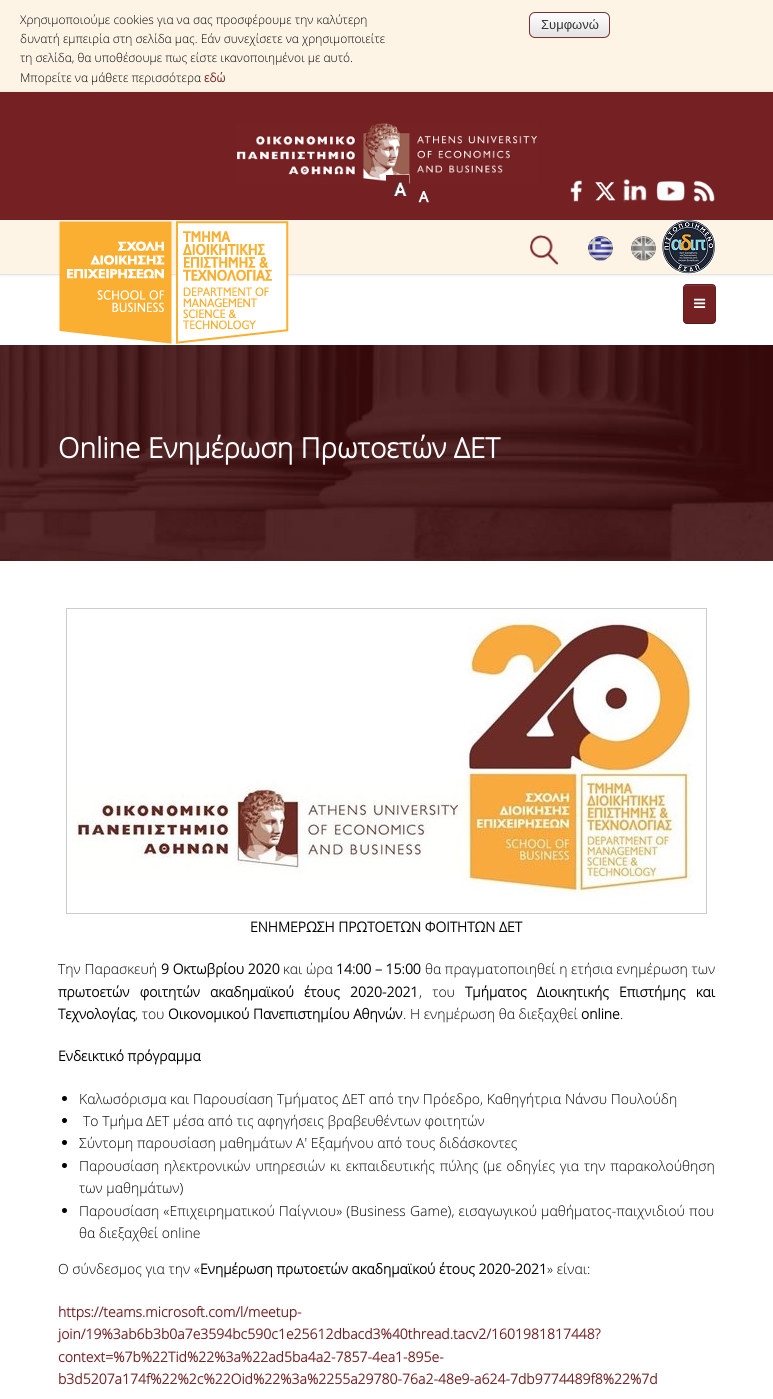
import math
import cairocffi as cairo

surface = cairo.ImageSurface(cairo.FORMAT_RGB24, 773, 1399)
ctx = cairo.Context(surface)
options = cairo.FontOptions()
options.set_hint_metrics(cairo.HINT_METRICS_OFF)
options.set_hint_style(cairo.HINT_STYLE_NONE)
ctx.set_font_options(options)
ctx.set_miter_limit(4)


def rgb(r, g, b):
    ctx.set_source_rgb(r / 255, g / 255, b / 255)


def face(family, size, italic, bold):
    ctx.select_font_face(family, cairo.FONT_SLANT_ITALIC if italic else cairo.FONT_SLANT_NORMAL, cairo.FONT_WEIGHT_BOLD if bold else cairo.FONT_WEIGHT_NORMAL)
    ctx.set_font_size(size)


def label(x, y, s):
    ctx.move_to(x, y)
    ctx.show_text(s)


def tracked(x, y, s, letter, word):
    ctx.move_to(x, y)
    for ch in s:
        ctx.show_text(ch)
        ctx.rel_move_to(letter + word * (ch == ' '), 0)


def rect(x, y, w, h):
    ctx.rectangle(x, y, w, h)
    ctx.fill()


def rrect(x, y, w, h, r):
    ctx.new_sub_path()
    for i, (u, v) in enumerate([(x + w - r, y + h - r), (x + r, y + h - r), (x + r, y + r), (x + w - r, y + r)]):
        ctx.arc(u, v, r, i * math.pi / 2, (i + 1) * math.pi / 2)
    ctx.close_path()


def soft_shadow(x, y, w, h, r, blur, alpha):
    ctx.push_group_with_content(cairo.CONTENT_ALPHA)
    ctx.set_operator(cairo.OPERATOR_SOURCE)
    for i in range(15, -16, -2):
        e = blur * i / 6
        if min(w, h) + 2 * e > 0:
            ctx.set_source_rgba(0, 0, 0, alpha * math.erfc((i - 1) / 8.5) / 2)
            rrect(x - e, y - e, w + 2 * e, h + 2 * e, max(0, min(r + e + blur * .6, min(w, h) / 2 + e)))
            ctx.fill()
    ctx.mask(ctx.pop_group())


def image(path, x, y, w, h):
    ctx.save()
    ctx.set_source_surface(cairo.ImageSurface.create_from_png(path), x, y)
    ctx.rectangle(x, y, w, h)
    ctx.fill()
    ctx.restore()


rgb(255, 255, 255)
ctx.paint()
rgb(253, 244, 230)
rect(0, 0, 773, 92)
face('Open Sans Light', 12, 0, 0)
rgb(0, 0, 0)
label(20, 24, 'Χρησιμοποιούμε cookies για να σας προσφέρουμε την καλύτερη')
label(20, 43, 'δυνατή εμπειρία στη σελίδα μας. Εάν συνεχίσετε να χρησιμοποιείτε')
label(20, 62, 'τη σελίδα, θα υποθέσουμε πως είστε ικανοποιημένοι με αυτό.')
label(20, 82, 'Μπορείτε να μάθετε περισσότερα')
face('Open Sans', 12, 0, 1)
rgb(117, 33, 35)
label(204, 82, 'εδώ')
ctx.save()
rrect(529, 12, 81, 26, 6)
ctx.clip()
gradient = cairo.LinearGradient(570, 13, 570, 37)
gradient.add_color_stop_rgba(0, 1, 1, 1, 1)
gradient.add_color_stop_rgba(1, 0.89, 0.89, 0.89, 1)
ctx.set_source(gradient)
rect(529, 13, 81, 24)
ctx.restore()
rrect(529.5, 12.5, 80, 25, 5.5)
rgb(129, 45, 49)
ctx.set_line_width(1)
ctx.stroke()
face('Liberation Sans', 13, 0, 0)
rgb(51, 51, 51)
label(541, 29, 'Συμφωνώ')
rgb(0, 0, 0)
soft_shadow(0, 92, 773, 183, 0, 1.5, 0.1)
rgb(253, 244, 230)
rect(0, 220, 773, 54)
rgb(228, 228, 228)
rect(0, 274, 773, 1)
rgb(117, 33, 35)
rect(0, 92, 773, 128)
image('image0.png', 236, 123, 302, 61)
image('image1.png', 386, 175, 23, 21)
image('image2.png', 418, 191, 11, 12)
image('image3.png', 570, 180, 12, 22)
image('image4.png', 595, 182, 21, 19)
image('image5.png', 623, 179, 24, 23)
image('image6.png', 656, 181, 29, 21)
image('image7.png', 693, 180, 22, 22)
image('image8.png', 530, 235, 29, 30)
image('image9.png', 588, 236, 25, 25)
image('image10.png', 631, 236, 25, 25)
image('image11.png', 662, 220, 53, 54)
image('image12.png', 59, 221, 230, 123)
rrect(683, 284, 33, 40, 4)
ctx.fill()
rgb(131, 55, 57)
ctx.new_path()
ctx.move_to(687, 286)
ctx.line_to(712, 286)
ctx.curve_to(714, 286, 715, 287, 715, 289)
ctx.curve_to(715, 284, 712, 285, 708, 285)
ctx.line_to(691, 285)
ctx.curve_to(687, 285, 684, 284, 684, 289)
ctx.curve_to(684, 287, 685, 286, 687, 286)
ctx.close_path()
ctx.fill()
ctx.new_path()
ctx.move_to(714.5, 322.5)
ctx.curve_to(714, 323, 713, 323.5, 712, 323.5)
ctx.line_to(687, 323.5)
ctx.curve_to(686, 323.5, 685, 323, 684.5, 322.5)
ctx.set_source_rgba(0, 0, 0, 0.25)
ctx.stroke()
ctx.new_path()
ctx.move_to(684.5, 322.5)
ctx.curve_to(682.5, 320.5, 683.5, 316.5, 683.5, 314.5)
ctx.line_to(683.5, 293.5)
ctx.curve_to(683.5, 285, 683, 284.5, 691, 284.5)
ctx.line_to(708, 284.5)
ctx.curve_to(716, 284.5, 715.5, 285, 715.5, 293.5)
ctx.line_to(715.5, 314.5)
ctx.curve_to(715.5, 316.5, 716.5, 320.5, 714.5, 322.5)
ctx.set_source_rgba(0, 0, 0, 0.15)
ctx.stroke()
image('image13.png', 694, 298, 12, 10)
image('image14.png', 0, 345, 773, 216)
face('Open Sans', 28, 0, 1)
rgb(255, 255, 255)
label(58, 458, 'Online Ενημέρωση Πρωτοετών ΔΕΤ')
ctx.rectangle(66.5, 608.5, 640, 305)
rgb(204, 204, 204)
ctx.stroke()
image('image15.png', 69, 613, 624, 286)
face('Open Sans', 14, 0, 1)
rgb(0, 0, 0)
label(250, 932, 'ΕΝΗΜΕΡΩΣΗ ΠΡΩΤΟΕΤΩΝ ΦΟΙΤΗΤΩΝ ΔΕΤ')
face('Open Sans Light', 14, 0, 0)
label(58, 974, 'Την Παρασκευή')
face('Open Sans', 14, 0, 1)
label(161, 974, '9 Οκτωβρίου 2020')
face('Open Sans Light', 14, 0, 0)
label(283, 974, 'και ώρα')
face('Open Sans', 14, 0, 1)
label(336, 974, '14:00 – 15:00')
face('Open Sans Light', 14, 0, 0)
label(425, 974, 'θα πραγματοποιηθεί η ετήσια ενημέρωση των')
face('Open Sans', 14, 0, 1)
tracked(58, 997, 'πρωτοετών φοιτητών ακαδημαϊκού έτους 2020-2021', 0, 6.5)
face('Open Sans Light', 14, 0, 0)
tracked(419, 997, ', του', 0, 6.5)
face('Open Sans', 14, 0, 1)
tracked(465, 997, 'Τμήματος Διοικητικής Επιστήμης και', 0, 6.5)
label(58, 1019, 'Τεχνολογίας')
face('Open Sans Light', 14, 0, 0)
label(135, 1019, ', του')
face('Open Sans', 14, 0, 1)
label(168, 1019, 'Οικονομικού Πανεπιστημίου Αθηνών')
face('Open Sans Light', 14, 0, 0)
label(403, 1019, '. Η ενημέρωση θα διεξαχθεί')
face('Open Sans', 14, 0, 1)
label(581, 1019, 'online')
face('Open Sans Light', 14, 0, 0)
label(620, 1019, '.')
face('Open Sans', 14, 0, 1)
label(58, 1061, 'Ενδεικτικό πρόγραμμα')
ctx.new_path()
ctx.arc(64.5, 1098.5, 2.5, 0, 2 * math.pi)
ctx.fill()
face('Open Sans Light', 14, 0, 0)
label(79, 1104, 'Καλωσόρισμα και Παρουσίαση Τμήματος ΔΕΤ από την Πρόεδρο, Καθηγήτρια Νάνσυ Πουλούδη')
ctx.new_path()
ctx.arc(64.5, 1120.5, 2.5, 0, 2 * math.pi)
ctx.fill()
label(83, 1126, 'Το Τμήμα ΔΕΤ μέσα από τις αφηγήσεις βραβευθέντων φοιτητών')
ctx.new_path()
ctx.arc(64.5, 1142.5, 2.5, 0, 2 * math.pi)
ctx.fill()
label(79, 1148, 'Σύντομη παρουσίαση μαθημάτων Α\' Εξαμήνου από τους διδάσκοντες')
ctx.new_path()
ctx.arc(64.5, 1165.5, 2.5, 0, 2 * math.pi)
ctx.fill()
tracked(79, 1171, 'Παρουσίαση ηλεκτρονικών υπηρεσιών κι εκπαιδευτικής πύλης (με οδηγίες για την παρακολούθηση', 0, 1.1)
label(79, 1193, 'των μαθημάτων)')
ctx.new_path()
ctx.arc(64.5, 1210.5, 2.5, 0, 2 * math.pi)
ctx.fill()
tracked(79, 1216, 'Παρουσίαση «Επιχειρηματικού Παίγνιου» (Business Game), εισαγωγικού μαθήματος-παιχνιδιού που', 0, 0.5)
label(79, 1238, 'θα διεξαχθεί online')
label(58, 1274, 'O σύνδεσμος για την «')
face('Open Sans', 14, 0, 1)
label(200, 1274, 'Ενημέρωση πρωτοετών ακαδημαϊκού έτους 2020-2021')
face('Open Sans Light', 14, 0, 0)
label(547, 1274, '» είναι:')
face('Open Sans', 14, 0, 1)
rgb(117, 33, 35)
label(58, 1317, 'https://teams.microsoft.com/l/meetup-')
label(58, 1339, 'join/19%3ab6b3b0a7e3594bc590c1e25612dbacd3%40thread.tacv2/1601981817448?')
label(58, 1362, 'context=%7b%22Tid%22%3a%22ad5ba4a2-7857-4ea1-895e-')
label(58, 1384, 'b3d5207a174f%22%2c%22Oid%22%3a%2255a29780-76a2-48e9-a624-7db9774489f8%22%7d')
surface.write_to_png('render.png')
